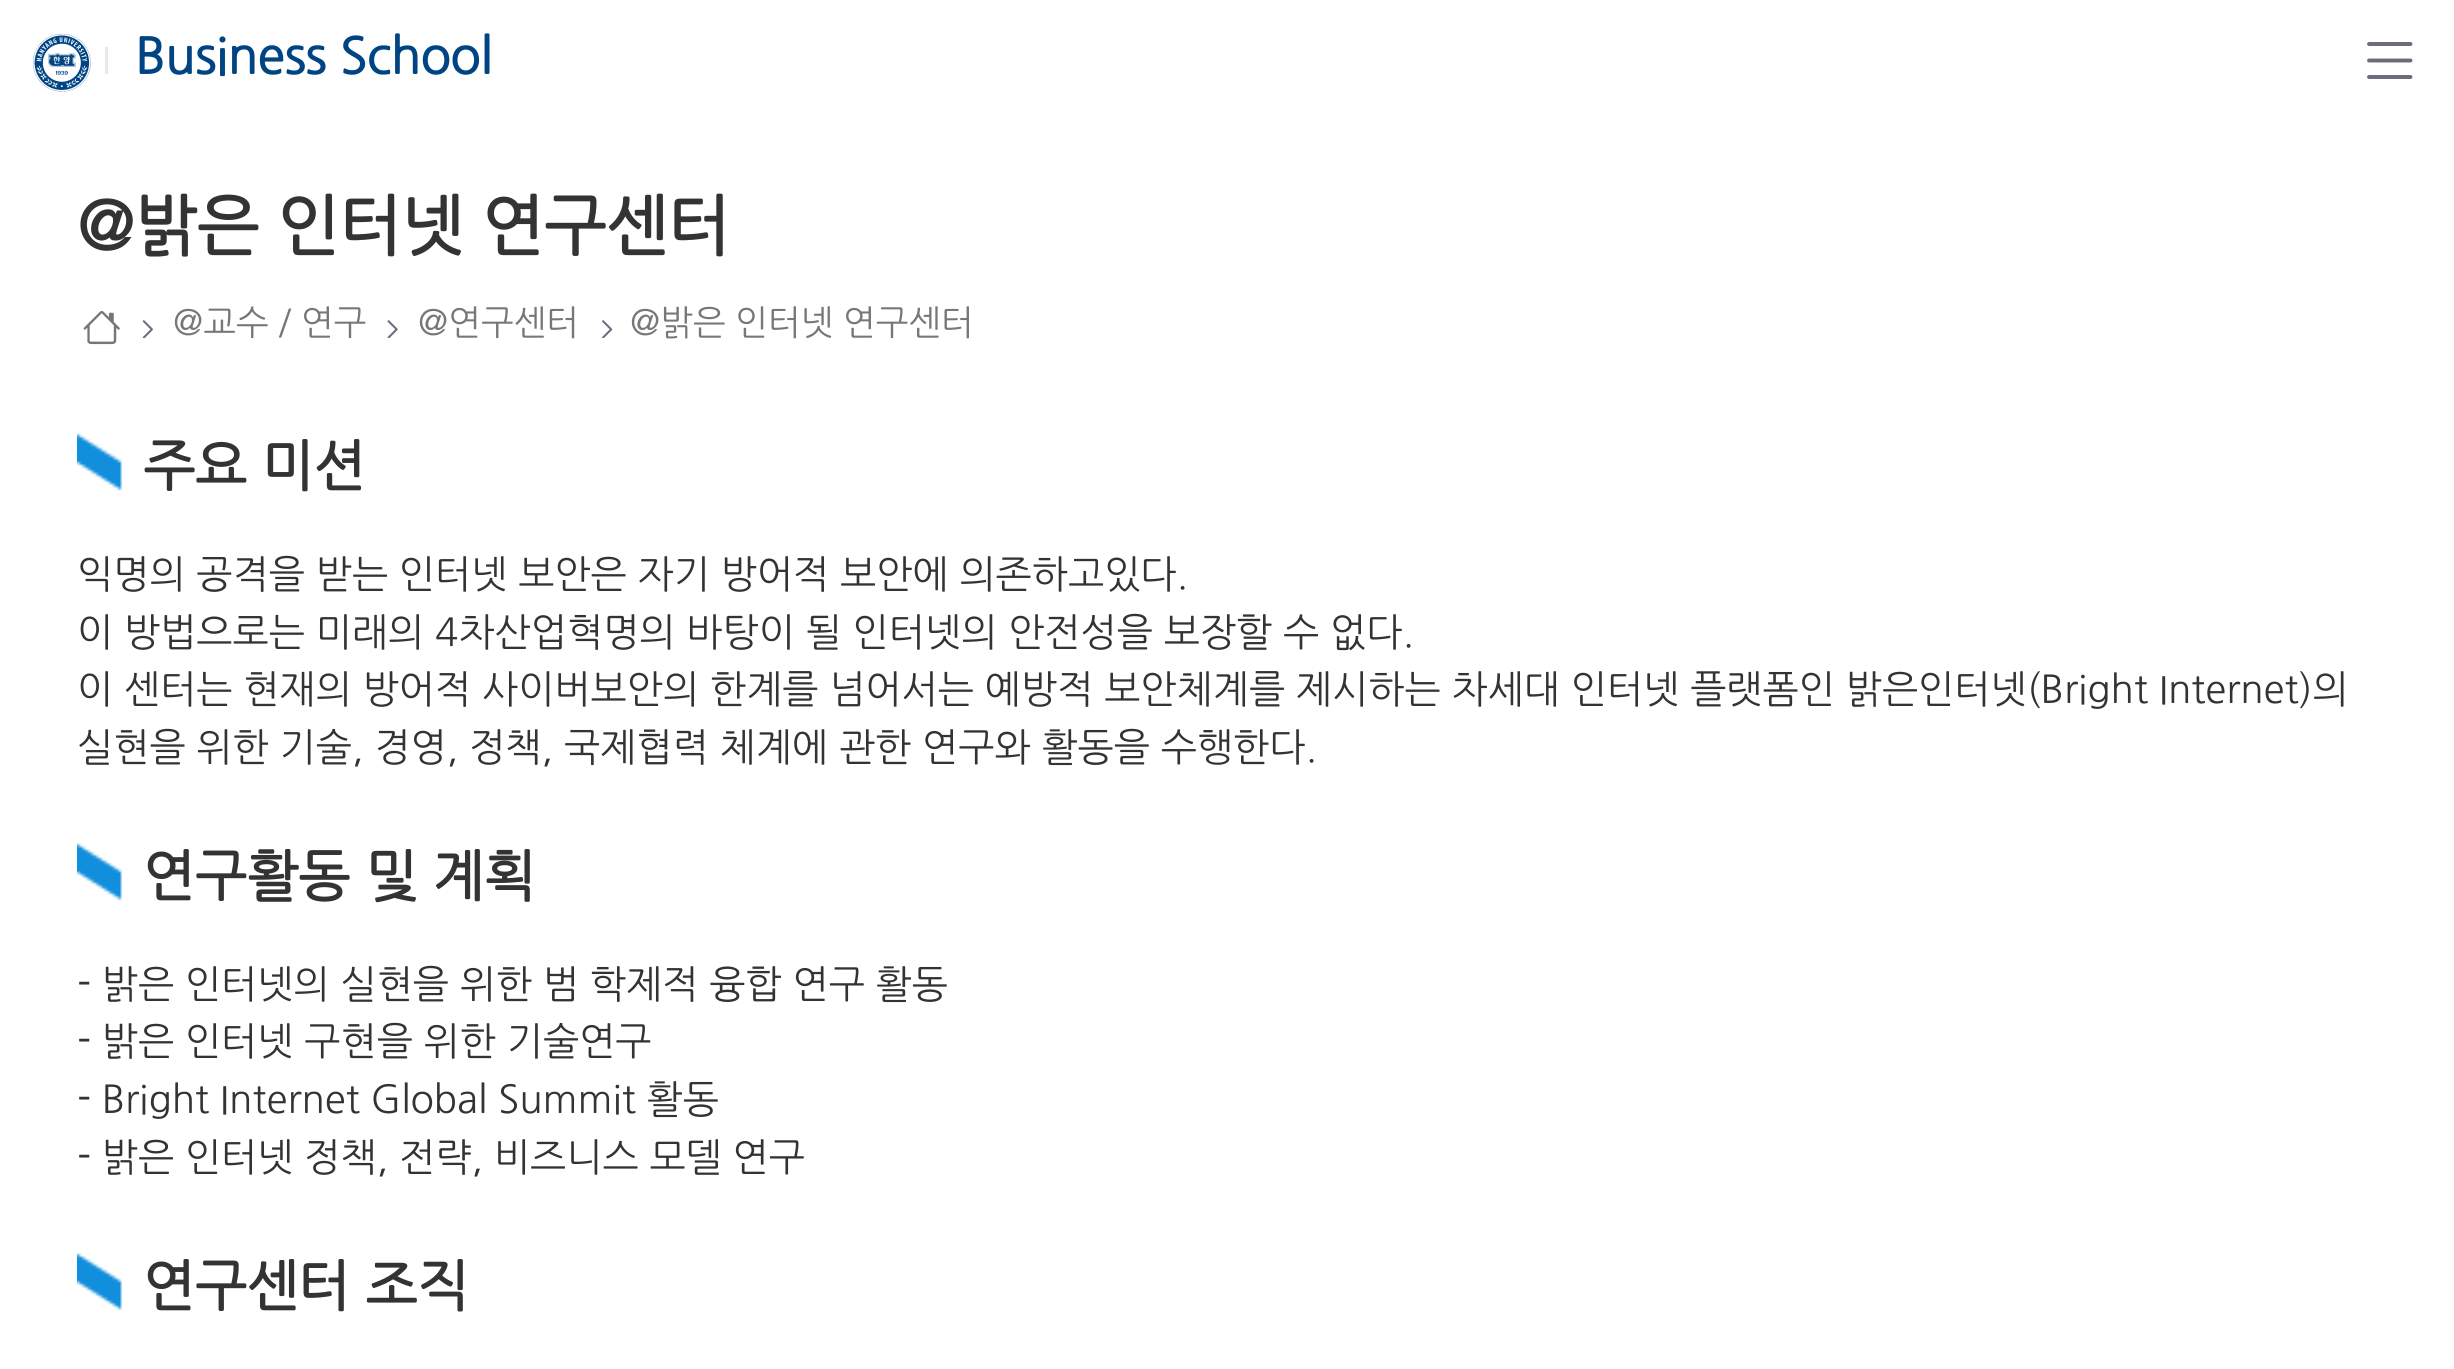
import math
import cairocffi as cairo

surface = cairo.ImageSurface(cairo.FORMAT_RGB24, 2454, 1369)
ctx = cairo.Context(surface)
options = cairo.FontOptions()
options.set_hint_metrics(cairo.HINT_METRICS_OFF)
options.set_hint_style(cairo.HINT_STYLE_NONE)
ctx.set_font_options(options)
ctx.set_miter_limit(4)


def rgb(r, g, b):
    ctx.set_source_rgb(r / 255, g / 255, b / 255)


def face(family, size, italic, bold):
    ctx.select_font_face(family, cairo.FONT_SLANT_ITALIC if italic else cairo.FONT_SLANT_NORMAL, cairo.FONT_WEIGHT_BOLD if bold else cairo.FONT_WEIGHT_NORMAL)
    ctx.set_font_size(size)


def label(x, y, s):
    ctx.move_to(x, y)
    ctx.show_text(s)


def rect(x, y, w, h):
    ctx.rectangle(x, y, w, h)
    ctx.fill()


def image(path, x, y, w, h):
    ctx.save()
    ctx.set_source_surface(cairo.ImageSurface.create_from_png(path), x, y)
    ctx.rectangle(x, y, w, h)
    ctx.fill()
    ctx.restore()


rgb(255, 255, 255)
ctx.paint()
image('image0.png', 33, 33, 58, 59)
rgb(231, 231, 237)
rect(105, 47, 3, 27)
face('NanumGothic', 49.25, 0, 1)
rgb(0, 68, 131)
label(135, 74, 'Business School')
image('image1.png', 2367, 42, 46, 37)
face('NanumGothic', 66, 0, 1)
rgb(51, 51, 51)
label(77, 250, '@밝은 인터넷 연구센터')
image('image2.png', 83, 311, 37, 34)
image('image3.png', 142, 320, 11, 18)
face('NanumGothic', 34.75, 0, 0)
rgb(119, 119, 119)
label(173, 335, '@교수 / 연구')
image('image4.png', 387, 320, 11, 18)
label(418, 335, '@연구센터')
image('image5.png', 602, 320, 11, 18)
label(630, 335, '@밝은 인터넷 연구센터')
image('image6.png', 77, 433, 45, 58)
face('NanumGothic', 55, 0, 1)
rgb(51, 51, 51)
label(143, 486, '주요 미션')
face('NanumGothic', 38.5, 0, 0)
label(77, 588, '익명의 공격을 받는 인터넷 보안은 자기 방어적 보안에 의존하고있다.')
label(77, 646, '이 방법으로는 미래의 4차산업혁명의 바탕이 될 인터넷의 안전성을 보장할 수 없다.')
label(77, 703, '이 센터는 현재의 방어적 사이버보안의 한계를 넘어서는 예방적 보안체계를 제시하는 차세대 인터넷 플랫폼인 밝은인터넷(Bright Internet)의')
label(77, 761, '실현을 위한 기술, 경영, 정책, 국제협력 체계에 관한 연구와 활동을 수행한다.')
image('image7.png', 77, 843, 45, 58)
face('NanumGothic', 55, 0, 1)
label(143, 896, '연구활동 및 계획')
face('NanumGothic', 38.5, 0, 0)
label(77, 998, '- 밝은 인터넷의 실현을 위한 범 학제적 융합 연구 활동')
label(77, 1055, '- 밝은 인터넷 구현을 위한 기술연구')
label(77, 1113, '- Bright Internet Global Summit 활동')
label(77, 1171, '- 밝은 인터넷 정책, 전략, 비즈니스 모델 연구')
image('image8.png', 77, 1253, 45, 57)
face('NanumGothic', 55, 0, 1)
label(143, 1306, '연구센터 조직')
surface.write_to_png('render.png')
